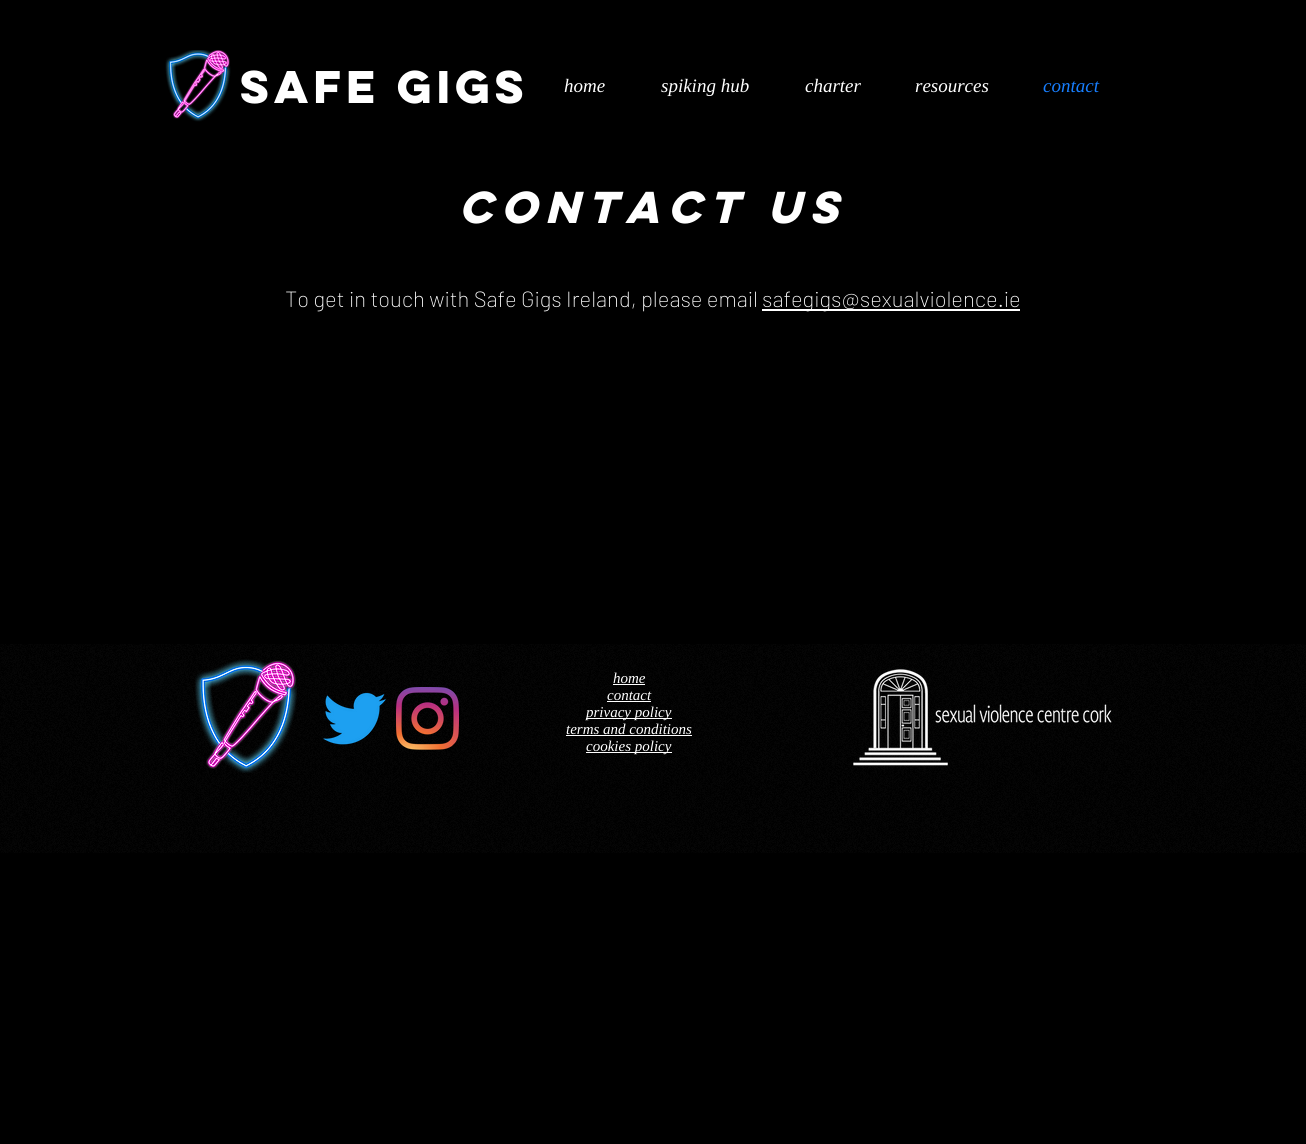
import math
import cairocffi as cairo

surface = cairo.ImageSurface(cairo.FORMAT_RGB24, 1306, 1144)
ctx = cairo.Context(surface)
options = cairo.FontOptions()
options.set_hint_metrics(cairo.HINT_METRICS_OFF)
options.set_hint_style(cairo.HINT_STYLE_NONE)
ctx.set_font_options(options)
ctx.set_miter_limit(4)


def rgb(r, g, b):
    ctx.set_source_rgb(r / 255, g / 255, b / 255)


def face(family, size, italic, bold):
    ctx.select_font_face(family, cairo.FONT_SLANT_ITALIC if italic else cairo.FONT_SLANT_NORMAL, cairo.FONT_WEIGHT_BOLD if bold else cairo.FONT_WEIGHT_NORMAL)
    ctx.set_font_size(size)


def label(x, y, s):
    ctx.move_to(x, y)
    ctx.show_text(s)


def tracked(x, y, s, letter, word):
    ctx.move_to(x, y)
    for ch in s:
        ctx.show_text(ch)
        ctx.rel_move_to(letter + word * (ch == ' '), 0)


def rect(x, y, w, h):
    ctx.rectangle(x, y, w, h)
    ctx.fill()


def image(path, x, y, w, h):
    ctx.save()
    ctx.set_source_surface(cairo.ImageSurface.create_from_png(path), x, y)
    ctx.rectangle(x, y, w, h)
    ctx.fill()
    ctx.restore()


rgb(0, 0, 0)
ctx.paint()
image('image0.png', 165, 50, 66, 72)
face('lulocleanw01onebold', 41, 0, 1)
rgb(255, 255, 255)
tracked(240, 103, 'safe gigs', -4, 0)
face('Liberation Serif', 19, 1, 0)
label(564, 92, 'home')
label(661, 92, 'spiking hub')
label(805, 92, 'charter')
label(915, 92, 'resources')
rgb(23, 126, 254)
label(1043, 92, 'contact')
face('lulocleanw01onebold', 40, 1, 1)
rgb(255, 255, 255)
label(459, 223, 'CONTACT US')
face('Barlow ExtraLight', 22, 0, 0)
label(285, 307, 'To get in touch with Safe Gigs Ireland, please email')
rect(762, 309, 258, 2)
label(762, 307, 'safegigs@sexualviolence.ie')
image('image1.png', 0, 644, 1306, 209)
image('image2.png', 195, 659, 102, 114)
image('image3.png', 323, 692, 63, 53)
image('image4.png', 396, 687, 63, 63)
face('Liberation Serif', 15, 1, 0)
label(613, 683, 'home')
rect(613, 684, 32, 1)
label(607, 700, 'contact')
rect(607, 701, 44, 1)
rect(586, 718, 86, 1)
label(586, 717, 'privacy policy')
label(566, 734, 'terms and conditions')
rect(566, 735, 126, 1)
rect(586, 752, 86, 1)
label(586, 751, 'cookies policy')
image('image5.png', 853, 669, 259, 97)
surface.write_to_png('render.png')
